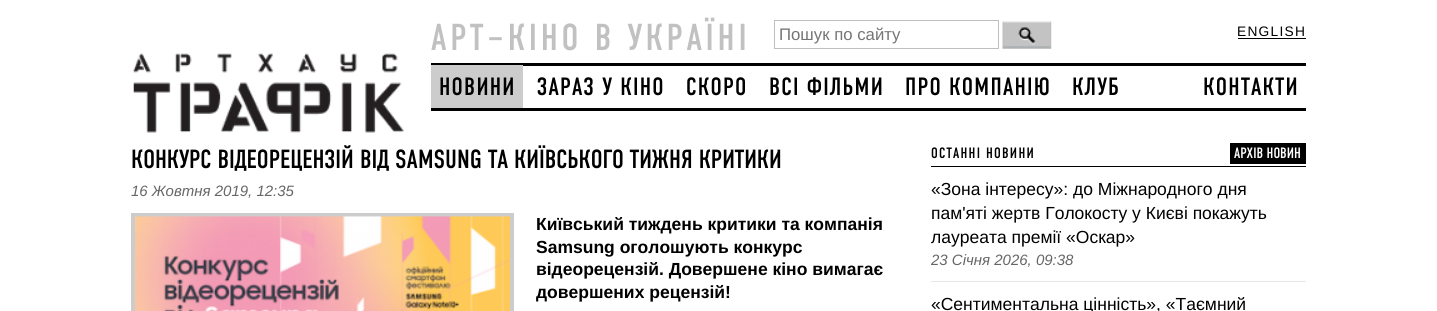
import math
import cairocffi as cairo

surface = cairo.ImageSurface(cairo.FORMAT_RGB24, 1437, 311)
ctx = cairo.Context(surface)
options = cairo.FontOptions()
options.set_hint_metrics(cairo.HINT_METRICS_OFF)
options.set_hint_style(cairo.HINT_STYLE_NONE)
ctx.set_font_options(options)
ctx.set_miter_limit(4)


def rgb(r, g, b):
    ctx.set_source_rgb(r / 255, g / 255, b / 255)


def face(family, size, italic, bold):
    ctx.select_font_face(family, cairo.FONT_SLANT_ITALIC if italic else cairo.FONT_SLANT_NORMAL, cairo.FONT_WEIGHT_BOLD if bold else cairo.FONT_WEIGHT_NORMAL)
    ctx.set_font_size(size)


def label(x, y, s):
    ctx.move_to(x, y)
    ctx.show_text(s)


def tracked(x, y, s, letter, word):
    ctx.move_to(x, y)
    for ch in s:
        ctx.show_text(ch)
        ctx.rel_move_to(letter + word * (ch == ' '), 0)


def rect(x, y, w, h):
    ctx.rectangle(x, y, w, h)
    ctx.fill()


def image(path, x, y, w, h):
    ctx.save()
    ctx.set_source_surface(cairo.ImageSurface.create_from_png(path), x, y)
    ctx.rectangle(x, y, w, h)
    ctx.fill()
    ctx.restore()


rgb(255, 255, 255)
ctx.paint()
image('image0.png', 133, 53, 271, 80)
face('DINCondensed', 37.5, 0, 0)
rgb(193, 193, 193)
tracked(431, 50, 'АРТ–КІНО В УКРАЇНІ', 3.75, 0)
ctx.rectangle(774.5, 20.5, 224, 28)
rgb(191, 191, 191)
ctx.set_line_width(1)
ctx.stroke()
face('Liberation Sans', 16.75, 0, 0)
rgb(117, 117, 117)
label(779, 40, 'Пошук по сайту')
image('image1.png', 1002, 21, 50, 28)
face('Liberation Sans', 13.75, 0, 0)
rgb(0, 0, 0)
tracked(1237, 36, 'ENGLISH', 1.25, 0)
rect(1238, 38, 68, 1)
rect(431, 63, 875, 3)
rect(431, 108, 875, 3)
rgb(204, 204, 204)
rect(431, 65, 92, 43)
face('DINCondensed', 25, 0, 0)
rgb(0, 0, 0)
tracked(439, 95, 'НОВИНИ', 1.25, 0)
tracked(537, 95, 'ЗАРАЗ У КІНО', 1.25, 0)
tracked(686, 95, 'СКОРО', 1.25, 0)
tracked(769, 95, 'ВСІ ФІЛЬМИ', 1.25, 0)
tracked(905, 95, 'ПРО КОМПАНІЮ', 1.25, 0)
tracked(1072, 95, 'КЛУБ', 1.25, 0)
tracked(1203, 95, 'КОНТАКТИ', 1.25, 0)
face('DINCondensed', 26.25, 0, 0)
label(131, 168, 'КОНКУРС ВІДЕОРЕЦЕНЗІЙ ВІД SAMSUNG ТА КИЇВСЬКОГО ТИЖНЯ КРИТИКИ')
face('Liberation Sans', 15, 1, 0)
rgb(102, 102, 102)
label(131, 196, '16 Жовтня 2019, 12:35')
ctx.rectangle(133, 215, 379, 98)
rgb(204, 204, 204)
ctx.set_line_width(4)
ctx.stroke()
image('image2.png', 135, 216, 375, 95)
face('Liberation Sans', 17.5, 0, 1)
rgb(0, 0, 0)
label(536, 230, 'Київський тиждень критики та компанія')
label(536, 253, 'Samsung оголошують конкурс')
label(536, 275, 'відеорецензій. Довершене кіно вимагає')
label(536, 298, 'довершених рецензій!')
face('DINCondensed', 15, 0, 0)
tracked(931, 158, 'ОСТАННІ НОВИНИ', 1.25, 0)
rect(1230, 143, 76, 21)
rgb(255, 255, 255)
label(1234, 158, 'АРХІВ НОВИН')
rgb(0, 0, 0)
rect(931, 166, 375, 1)
face('Liberation Sans', 17.5, 0, 0)
label(931, 195, '«Зона інтересу»: до Міжнародного дня')
label(931, 219, 'пам\'яті жертв Голокосту у Києві покажуть')
label(931, 243, 'лауреата премії «Оскар»')
face('Liberation Sans', 15, 1, 0)
rgb(102, 102, 102)
label(931, 265, '23 Січня 2026, 09:38')
rgb(231, 231, 231)
rect(931, 281, 375, 1)
face('Liberation Sans', 17.5, 0, 0)
rgb(0, 0, 0)
label(931, 310, '«Сентиментальна цінність», «Таємний')
surface.write_to_png('render.png')
